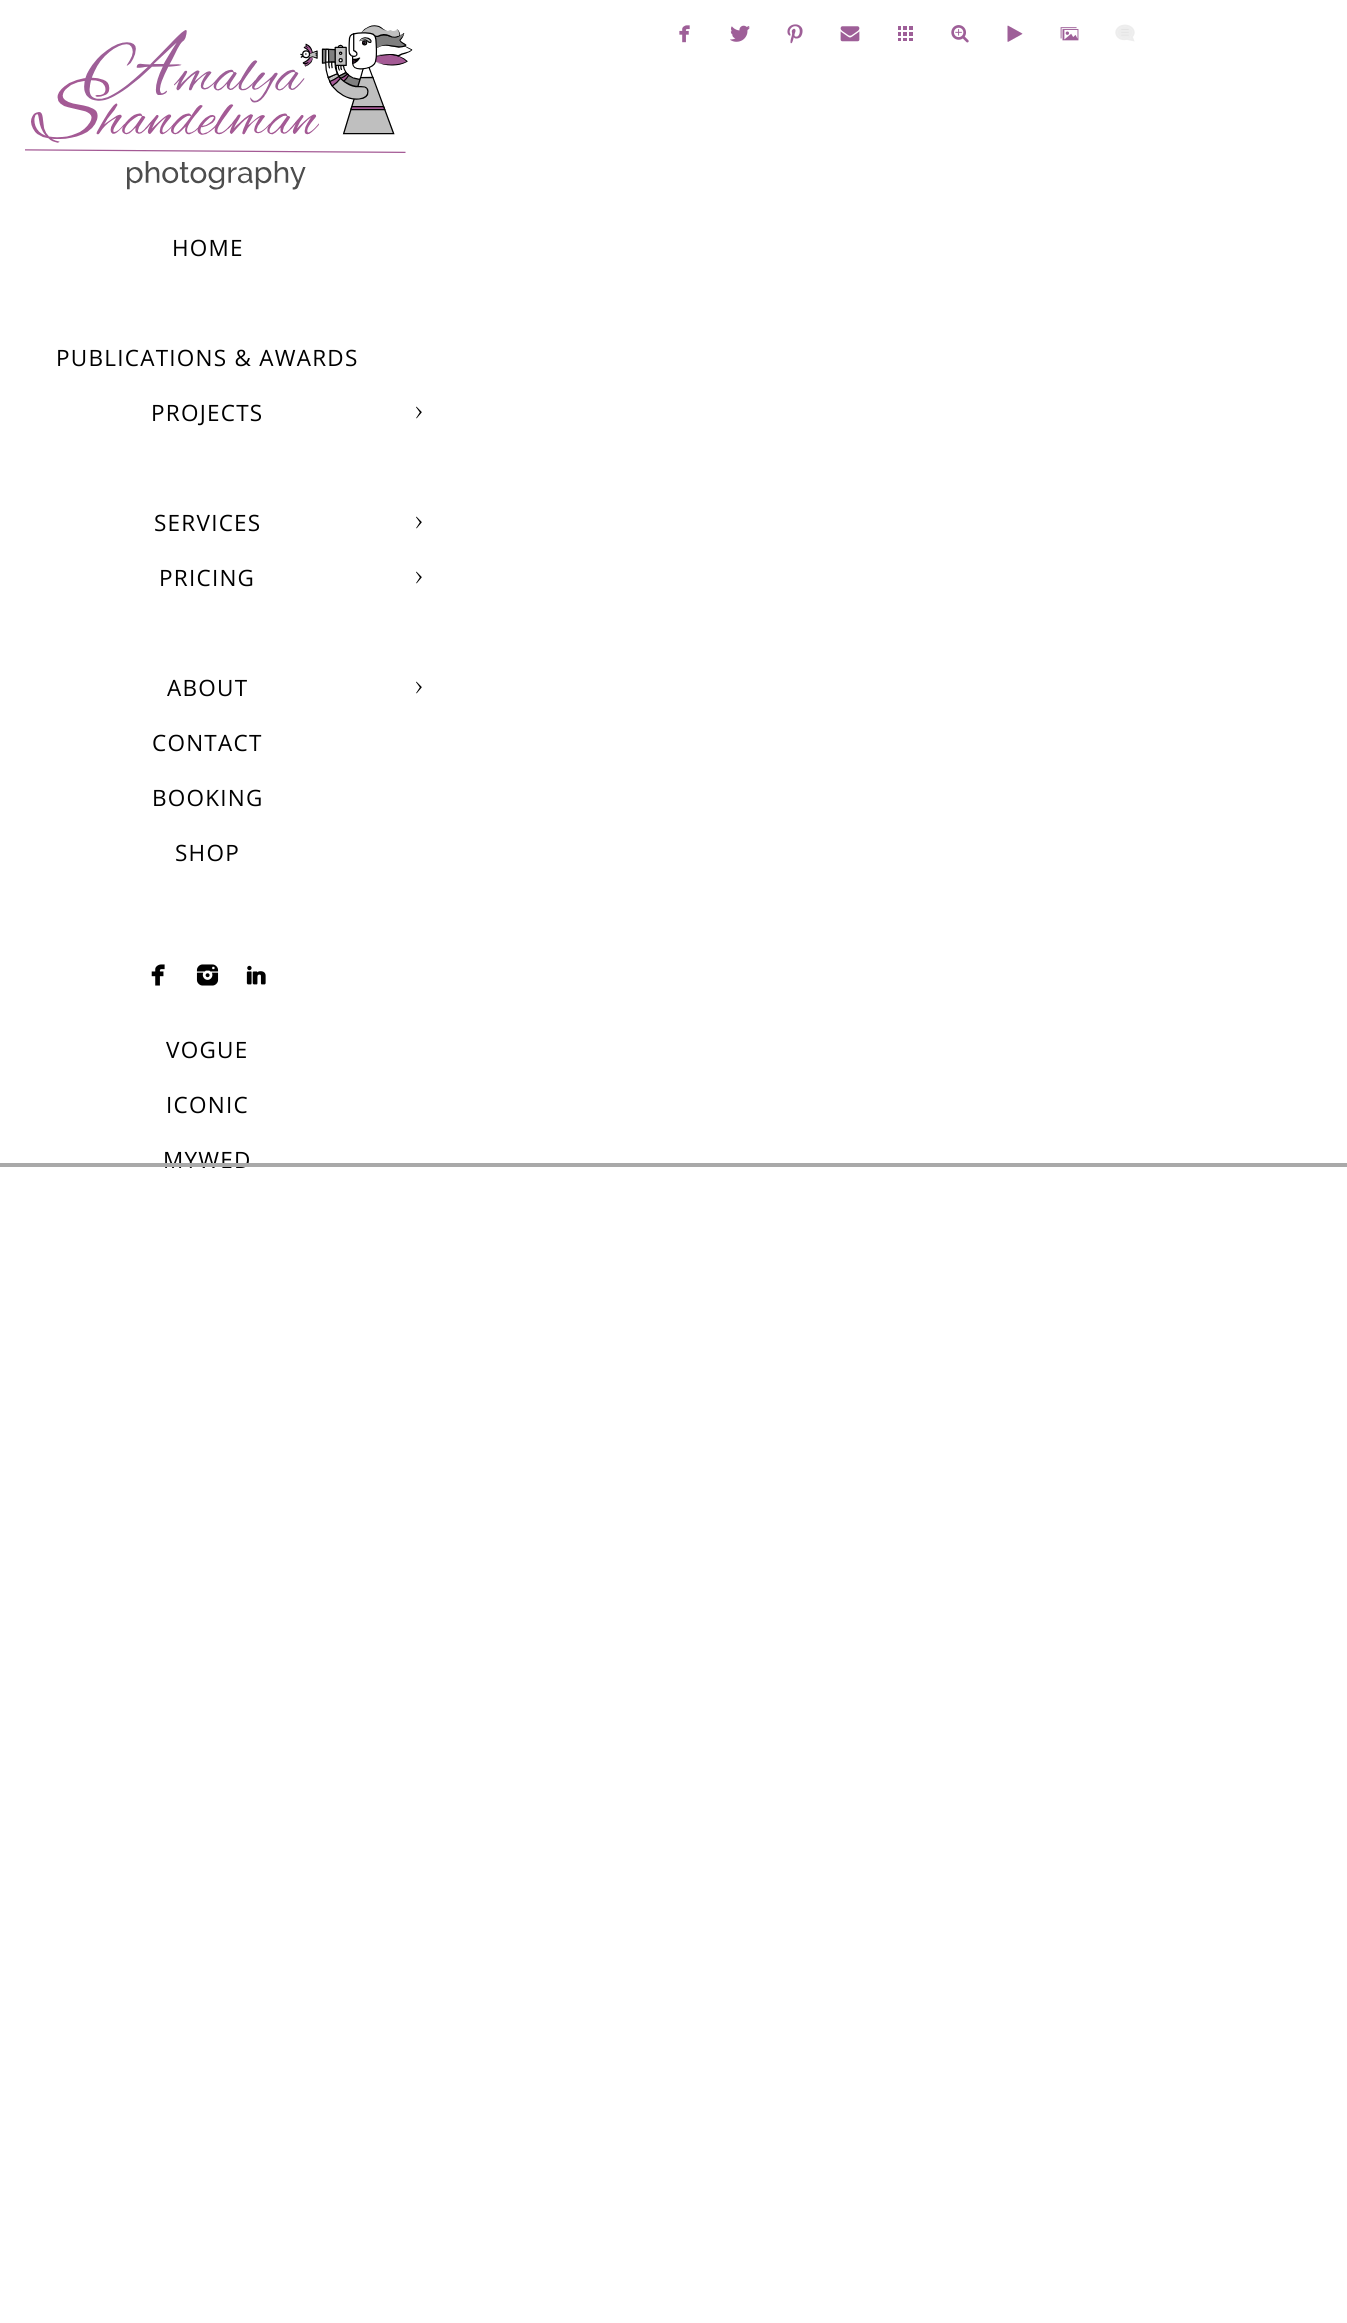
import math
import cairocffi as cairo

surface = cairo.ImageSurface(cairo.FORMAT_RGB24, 1347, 2323)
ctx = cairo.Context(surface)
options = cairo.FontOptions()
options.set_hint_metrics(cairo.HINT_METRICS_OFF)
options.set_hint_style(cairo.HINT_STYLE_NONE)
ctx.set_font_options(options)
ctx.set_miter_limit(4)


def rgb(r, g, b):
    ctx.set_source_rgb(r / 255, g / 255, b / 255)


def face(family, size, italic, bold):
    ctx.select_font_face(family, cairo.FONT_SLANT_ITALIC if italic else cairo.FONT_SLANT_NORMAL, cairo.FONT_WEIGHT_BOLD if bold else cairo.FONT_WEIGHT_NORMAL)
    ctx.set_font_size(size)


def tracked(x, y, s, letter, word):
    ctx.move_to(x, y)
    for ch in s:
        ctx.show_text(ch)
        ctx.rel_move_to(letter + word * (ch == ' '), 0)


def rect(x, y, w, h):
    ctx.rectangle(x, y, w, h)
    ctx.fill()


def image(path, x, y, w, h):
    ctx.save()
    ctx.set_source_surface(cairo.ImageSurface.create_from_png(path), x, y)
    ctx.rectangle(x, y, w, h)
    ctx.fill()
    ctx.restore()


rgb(255, 255, 255)
ctx.paint()
image('image0.png', 679, 25, 11, 18)
image('image1.png', 730, 25, 20, 17)
image('image2.png', 787, 24, 16, 20)
image('image3.png', 840, 26, 20, 16)
image('image4.png', 898, 26, 15, 15)
image('image5.png', 951, 25, 18, 18)
image('image6.png', 1007, 25, 16, 17)
image('image7.png', 1060, 27, 19, 14)
image('image8.png', 1115, 24, 20, 18)
image('image9.png', 25, 25, 388, 165)
face('Open Sans', 22.5, 0, 0)
rgb(0, 0, 0)
tracked(172, 256, 'HOME', 1.25, 0)
tracked(56, 366, 'PUBLICATIONS & AWARDS', 1.25, 0)
tracked(151, 421, 'PROJECTS', 1.25, 0)
image('image10.png', 416, 406, 6, 13)
tracked(154, 531, 'SERVICES', 1.25, 0)
image('image10.png', 416, 516, 6, 13)
tracked(159, 586, 'PRICING', 1.25, 0)
image('image10.png', 416, 571, 6, 13)
tracked(167, 696, 'ABOUT', 1.25, 0)
image('image10.png', 416, 681, 6, 13)
tracked(152, 751, 'CONTACT', 1.25, 0)
tracked(152, 806, 'BOOKING', 1.25, 0)
tracked(175, 861, 'SHOP', 1.25, 0)
image('image11.png', 151, 964, 14, 22)
image('image12.png', 196, 964, 23, 22)
image('image13.png', 246, 965, 20, 20)
tracked(166, 1058, 'VOGUE', 1.25, 0)
tracked(166, 1113, 'ICONIC', 1.25, 0)
tracked(163, 1168, 'MYWED', 1.25, 0)
rgb(169, 169, 169)
rect(0, 1163, 1347, 4)
surface.write_to_png('render.png')
